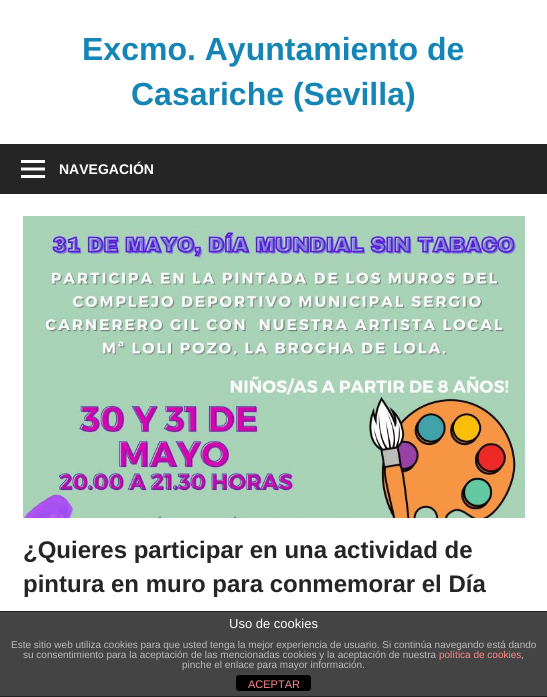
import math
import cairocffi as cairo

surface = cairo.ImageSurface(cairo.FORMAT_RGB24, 547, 697)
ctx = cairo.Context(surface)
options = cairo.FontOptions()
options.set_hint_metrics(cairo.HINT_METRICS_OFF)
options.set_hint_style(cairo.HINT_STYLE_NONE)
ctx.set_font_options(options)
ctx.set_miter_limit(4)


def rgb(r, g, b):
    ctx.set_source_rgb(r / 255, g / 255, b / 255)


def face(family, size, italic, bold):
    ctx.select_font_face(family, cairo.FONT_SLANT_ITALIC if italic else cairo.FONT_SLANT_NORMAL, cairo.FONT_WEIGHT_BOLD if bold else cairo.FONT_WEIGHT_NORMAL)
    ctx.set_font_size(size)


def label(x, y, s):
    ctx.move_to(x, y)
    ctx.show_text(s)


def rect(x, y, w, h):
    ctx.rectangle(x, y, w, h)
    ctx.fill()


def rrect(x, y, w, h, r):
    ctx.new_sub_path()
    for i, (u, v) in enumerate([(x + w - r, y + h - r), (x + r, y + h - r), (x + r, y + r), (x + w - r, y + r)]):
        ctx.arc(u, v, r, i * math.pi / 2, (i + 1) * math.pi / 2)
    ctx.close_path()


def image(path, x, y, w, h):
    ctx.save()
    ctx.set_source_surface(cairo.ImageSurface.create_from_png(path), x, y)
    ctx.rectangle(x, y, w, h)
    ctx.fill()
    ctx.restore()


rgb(255, 255, 255)
ctx.paint()
face('Liberation Sans', 32, 0, 1)
rgb(21, 133, 181)
label(82, 60, 'Excmo. Ayuntamiento de')
label(131, 105, 'Casariche (Sevilla)')
rgb(37, 37, 37)
rect(0, 144, 547, 50)
image('image0.png', 21, 160, 24, 18)
face('Liberation Sans', 14, 0, 1)
rgb(255, 255, 255)
label(59, 174, 'NAVEGACIÓN')
image('image1.png', 23, 216, 502, 302)
face('Liberation Sans', 24, 0, 1)
rgb(37, 37, 37)
label(23, 558, '¿Quieres participar en una actividad de')
label(23, 592, 'pintura en muro para conmemorar el Día')
rgb(68, 68, 68)
rect(0, 612, 547, 84)
rgb(34, 34, 34)
rect(0, 611, 547, 1)
rect(0, 696, 547, 1)
face('Liberation Sans', 13, 0, 0)
rgb(255, 255, 255)
label(229, 628, 'Uso de cookies')
face('Liberation Sans', 10, 0, 0)
rgb(187, 187, 187)
label(11, 648, 'Este sitio web utiliza cookies para que usted tenga la mejor experiencia de usuario. Si continúa navegando está dando')
label(23, 658, 'su consentimiento para la aceptación de las mencionadas cookies y la aceptación de nuestra')
rgb(255, 136, 136)
label(439, 658, 'política de cookies')
rgb(187, 187, 187)
label(521, 658, ',')
label(182, 668, 'pinche el enlace para mayor información.')
rgb(0, 0, 0)
rrect(236, 675, 75, 16, 3)
ctx.fill()
face('Liberation Sans', 11, 0, 0)
rgb(255, 136, 136)
label(248, 688, 'ACEPTAR')
surface.write_to_png('render.png')
